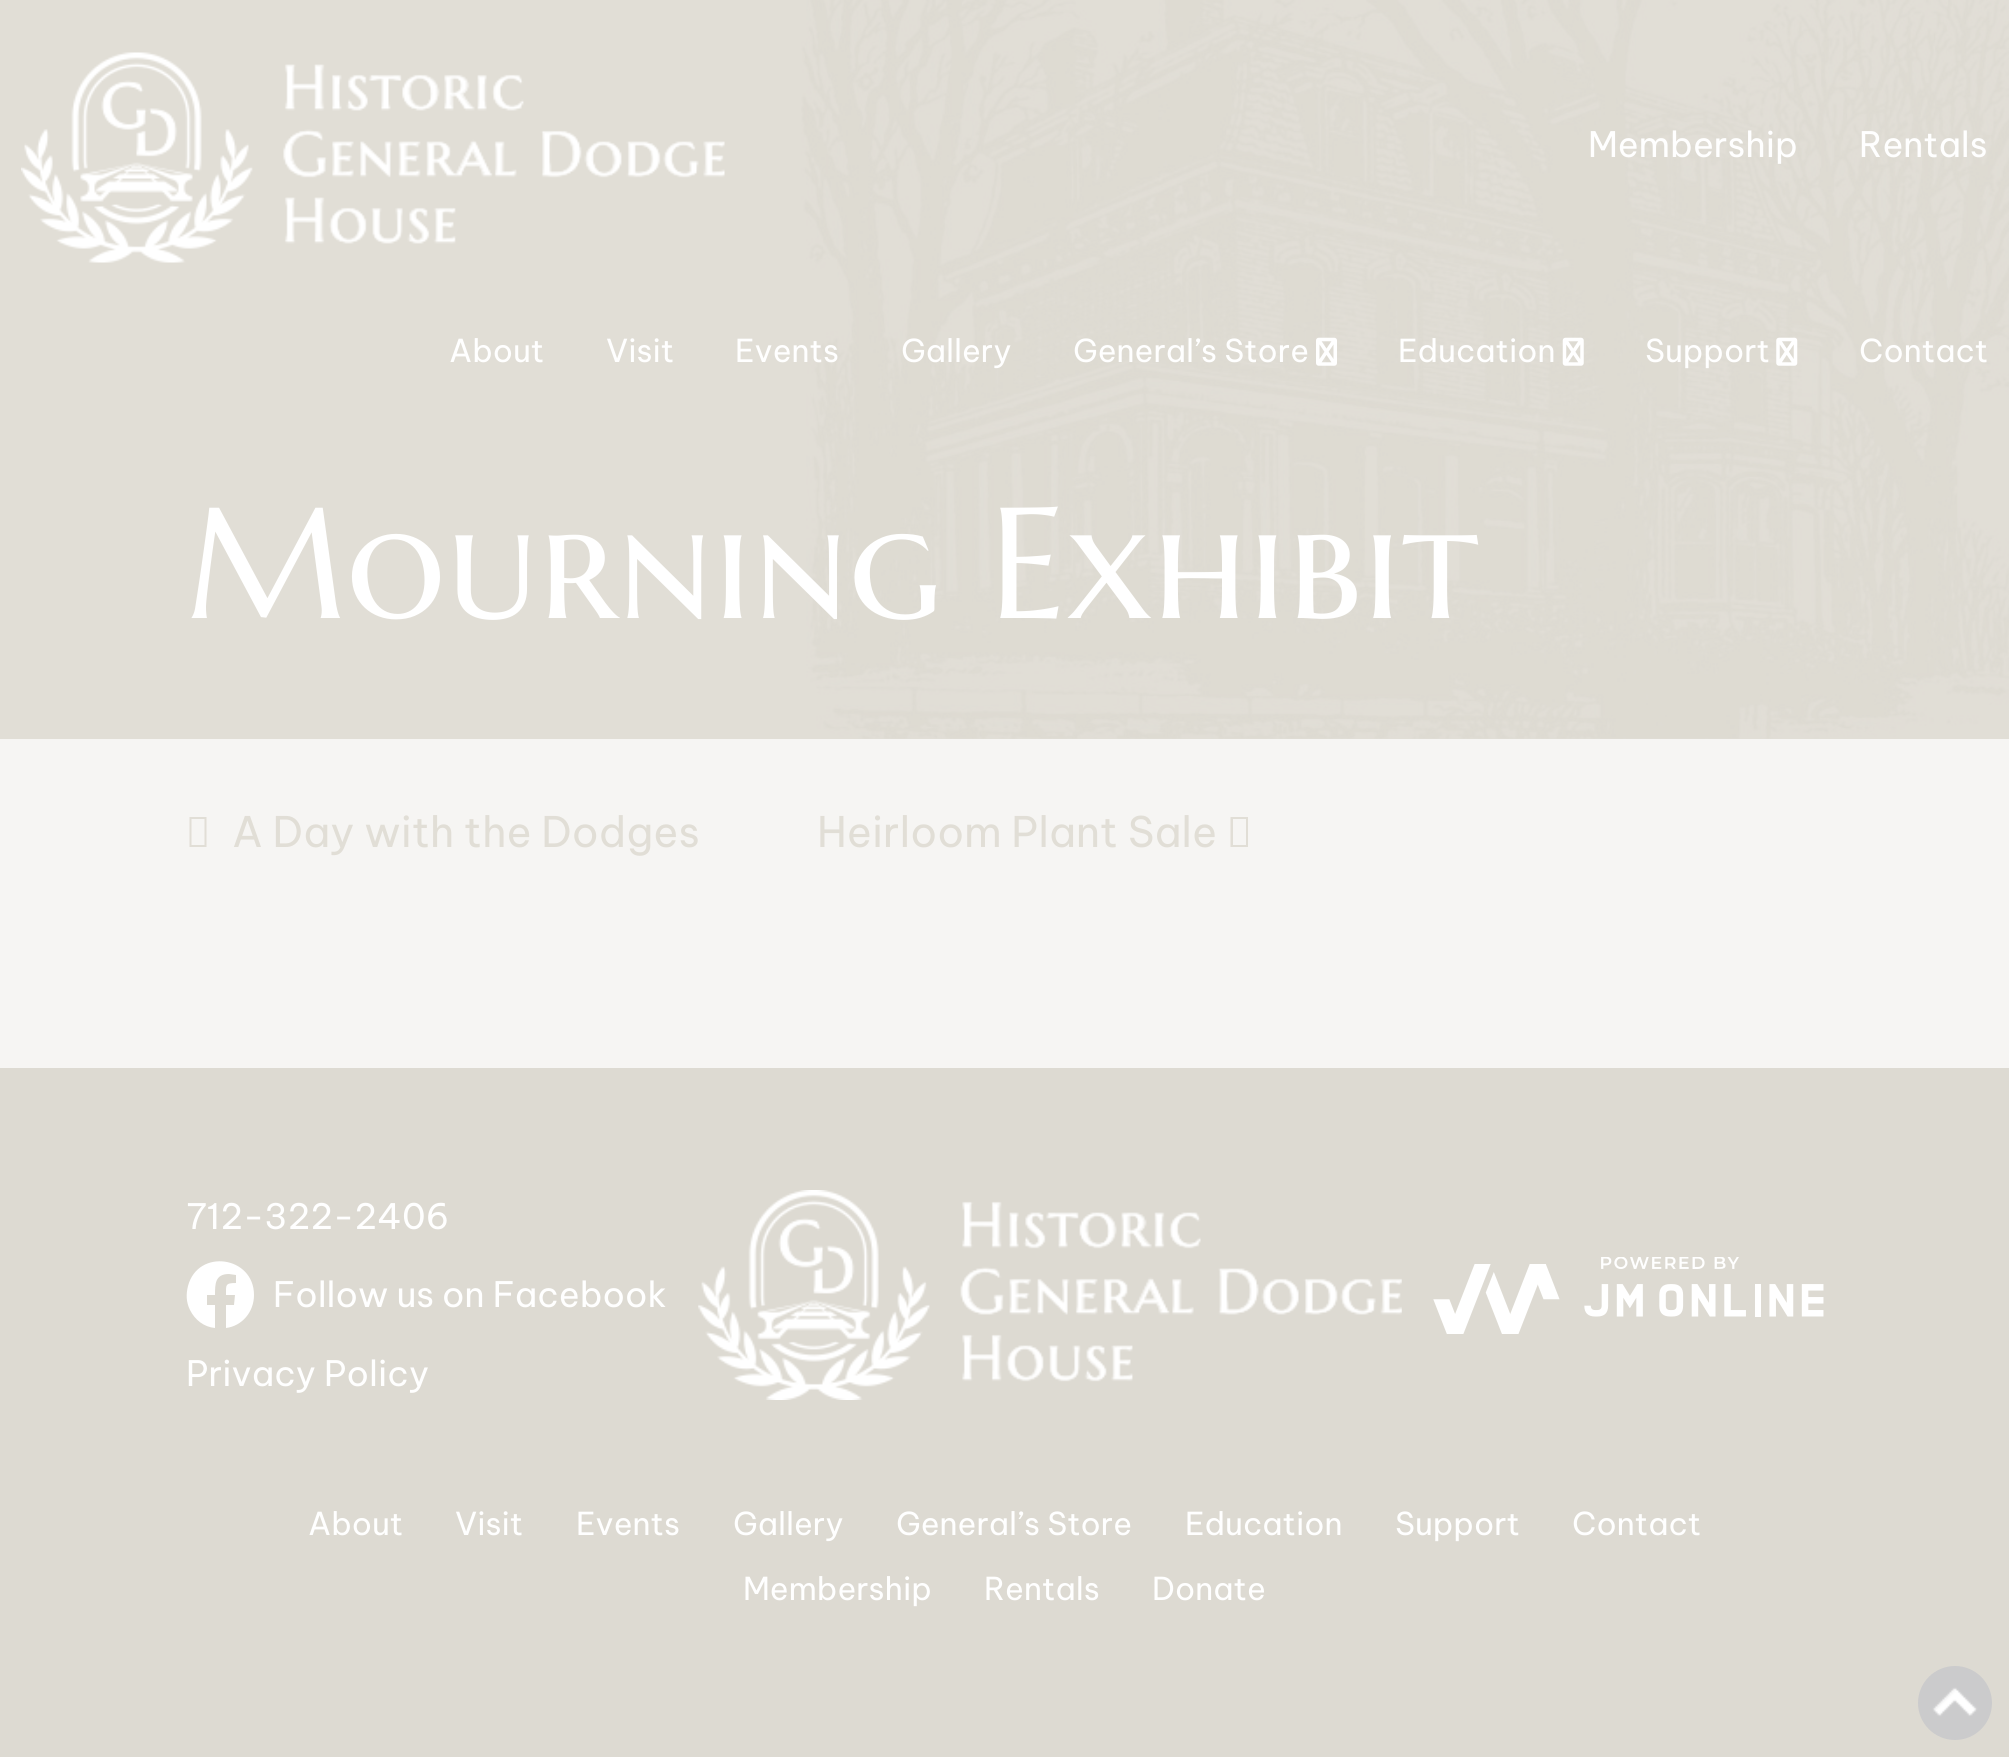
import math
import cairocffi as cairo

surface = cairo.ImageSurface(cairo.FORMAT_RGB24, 2009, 1757)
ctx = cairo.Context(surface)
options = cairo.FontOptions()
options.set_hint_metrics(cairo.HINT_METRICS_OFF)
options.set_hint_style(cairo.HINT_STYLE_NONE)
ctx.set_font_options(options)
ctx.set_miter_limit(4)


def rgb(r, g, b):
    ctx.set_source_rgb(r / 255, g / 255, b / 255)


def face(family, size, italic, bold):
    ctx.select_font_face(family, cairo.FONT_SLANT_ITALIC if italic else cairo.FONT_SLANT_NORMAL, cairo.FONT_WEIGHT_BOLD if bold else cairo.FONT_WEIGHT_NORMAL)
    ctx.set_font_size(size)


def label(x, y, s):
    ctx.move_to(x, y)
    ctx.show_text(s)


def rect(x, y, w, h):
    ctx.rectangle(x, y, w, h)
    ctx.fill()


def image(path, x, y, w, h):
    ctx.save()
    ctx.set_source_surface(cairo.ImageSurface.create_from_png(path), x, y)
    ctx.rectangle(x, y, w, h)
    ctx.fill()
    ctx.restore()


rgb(246, 245, 243)
ctx.paint()
rgb(225, 222, 214)
rect(0, 0, 2009, 739)
image('image0.png', 801, 0, 1208, 739)
image('image1.png', 21, 52, 704, 211)
face('Be Vietnam Pro', 35, 0, 0)
rgb(255, 255, 255)
label(1588, 157, 'Membership')
label(1859, 157, 'Rentals')
face('Be Vietnam Pro', 31.5, 0, 0)
label(449, 362, 'About')
label(606, 362, 'Visit')
label(735, 362, 'Events')
label(901, 362, 'Gallery')
label(1073, 362, 'General’s Store')
image('image2.png', 1316, 337, 21, 29)
label(1398, 362, 'Education')
image('image3.png', 1562, 337, 22, 29)
label(1645, 362, 'Support')
image('image4.png', 1776, 337, 22, 29)
label(1859, 362, 'Contact')
face('Marcellus SC', 157.5, 0, 0)
label(186, 618, 'Mourning Exhibit')
rgb(225, 222, 214)
ctx.new_path()
ctx.move_to(189.5, 847)
ctx.line_to(189.5, 817)
ctx.line_to(206.5, 817)
ctx.line_to(206.5, 847)
ctx.close_path()
ctx.move_to(191.5, 845)
ctx.line_to(204.5, 845)
ctx.line_to(204.5, 819)
ctx.line_to(191.5, 819)
ctx.close_path()
ctx.fill()
face('Be Vietnam Pro', 42, 0, 0)
label(232, 847, 'A Day with the Dodges')
label(817, 847, 'Heirloom Plant Sale')
ctx.new_path()
ctx.move_to(1230.5, 847)
ctx.line_to(1230.5, 817)
ctx.line_to(1248, 817)
ctx.line_to(1248, 847)
ctx.close_path()
ctx.move_to(1233, 845)
ctx.line_to(1246, 845)
ctx.line_to(1246, 819)
ctx.line_to(1233, 819)
ctx.close_path()
ctx.fill()
rgb(221, 218, 210)
rect(0, 1068, 2009, 689)
face('Be Vietnam Pro', 35, 0, 0)
rgb(255, 255, 255)
label(186, 1229, '712-322-2406')
ctx.new_path()
ctx.move_to(254, 1295)
ctx.curve_to(254, 1256, 198, 1248, 188, 1286)
ctx.curve_to(186, 1294, 186, 1302, 190, 1310)
ctx.curve_to(195, 1320, 204, 1327, 215, 1328)
ctx.line_to(215, 1305)
ctx.line_to(207, 1305)
ctx.line_to(207, 1295)
ctx.line_to(215, 1295)
ctx.curve_to(215, 1284, 215, 1274, 229, 1274)
ctx.line_to(236, 1275)
ctx.line_to(236, 1283)
ctx.curve_to(225, 1283, 226, 1285, 226, 1295)
ctx.line_to(235, 1295)
ctx.line_to(234, 1305)
ctx.line_to(226, 1305)
ctx.line_to(226, 1328)
ctx.curve_to(242, 1326, 254, 1312, 254, 1295)
ctx.close_path()
ctx.fill()
label(273, 1307, 'Follow us on Facebook')
label(186, 1386, 'Privacy Policy')
image('image5.png', 698, 1190, 704, 210)
image('image6.png', 1433, 1257, 391, 77)
face('Be Vietnam Pro', 31.5, 0, 0)
label(308, 1535, 'About')
label(455, 1535, 'Visit')
label(576, 1535, 'Events')
label(733, 1535, 'Gallery')
label(896, 1535, 'General’s Store')
label(1185, 1535, 'Education')
label(1395, 1535, 'Support')
label(1572, 1535, 'Contact')
label(743, 1600, 'Membership')
label(984, 1600, 'Rentals')
label(1152, 1600, 'Donate')
rgb(203, 203, 204)
ctx.new_path()
ctx.arc(1955, 1703, 37, 0, 2 * math.pi)
ctx.fill()
image('image7.png', 1932, 1687, 46, 30)
surface.write_to_png('render.png')
